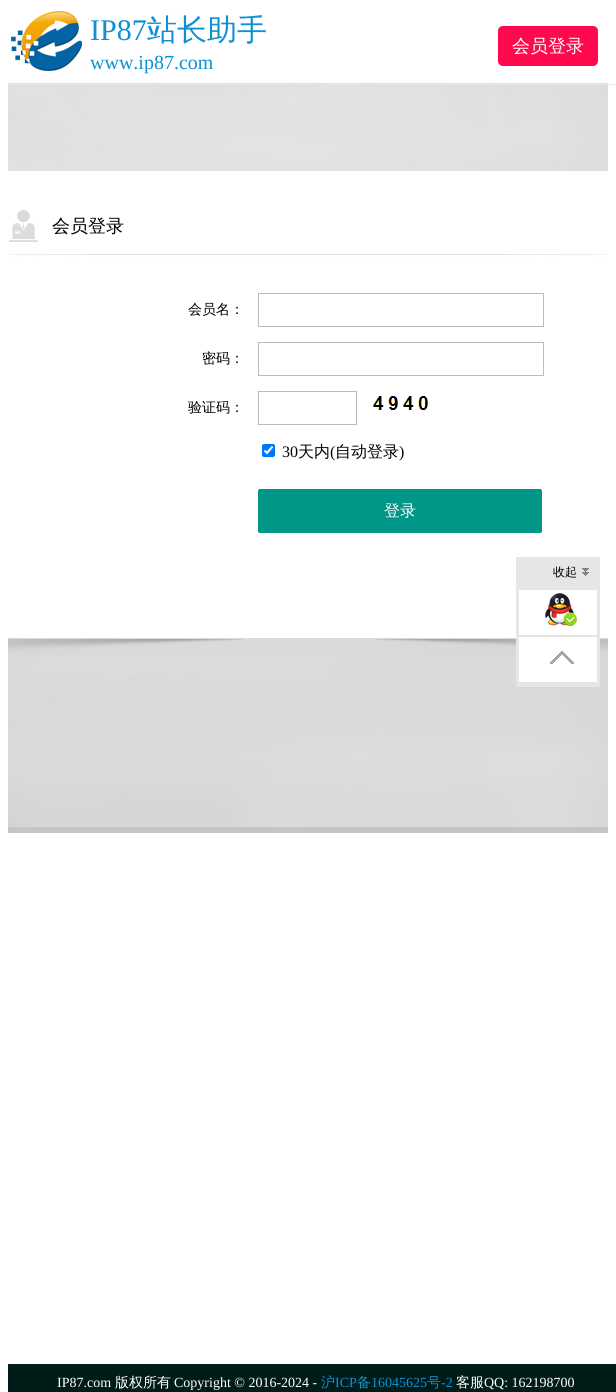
import math
import cairocffi as cairo

surface = cairo.ImageSurface(cairo.FORMAT_RGB24, 616, 1392)
ctx = cairo.Context(surface)
options = cairo.FontOptions()
options.set_hint_metrics(cairo.HINT_METRICS_OFF)
options.set_hint_style(cairo.HINT_STYLE_NONE)
ctx.set_font_options(options)
ctx.set_miter_limit(4)


def rgb(r, g, b):
    ctx.set_source_rgb(r / 255, g / 255, b / 255)


def face(family, size, italic, bold):
    ctx.select_font_face(family, cairo.FONT_SLANT_ITALIC if italic else cairo.FONT_SLANT_NORMAL, cairo.FONT_WEIGHT_BOLD if bold else cairo.FONT_WEIGHT_NORMAL)
    ctx.set_font_size(size)


def label(x, y, s):
    ctx.move_to(x, y)
    ctx.show_text(s)


def rect(x, y, w, h):
    ctx.rectangle(x, y, w, h)
    ctx.fill()


def rrect(x, y, w, h, r):
    ctx.new_sub_path()
    for i, (u, v) in enumerate([(x + w - r, y + h - r), (x + r, y + h - r), (x + r, y + r), (x + w - r, y + r)]):
        ctx.arc(u, v, r, i * math.pi / 2, (i + 1) * math.pi / 2)
    ctx.close_path()


def image(path, x, y, w, h):
    ctx.save()
    ctx.set_source_surface(cairo.ImageSurface.create_from_png(path), x, y)
    ctx.rectangle(x, y, w, h)
    ctx.fill()
    ctx.restore()


rgb(255, 255, 255)
ctx.paint()
image('image1.png', 8, 83, 600, 744)
rgb(229, 229, 229)
rect(8, 84, 608, 1)
image('image0.png', 11, 11, 71, 60)
face('Liberation Serif', 30, 0, 0)
rgb(14, 144, 210)
label(90, 40, 'IP87')
face('WenQuanYi Zen Hei Medium', 30, 0, 0)
label(147, 40, '站长助手')
face('Liberation Serif', 20, 0, 0)
label(90, 69, 'www.ip87.com')
rgb(253, 9, 76)
rrect(498, 26, 100, 40, 5)
ctx.fill()
face('WenQuanYi Zen Hei Medium', 18, 0, 0)
rgb(255, 255, 255)
label(512, 52, '会员登录')
rgb(197, 197, 197)
rect(8, 827, 600, 6)
image('image2.png', 9, 210, 29, 32)
rgb(0, 0, 0)
label(52, 232, '会员登录')
face('WenQuanYi Zen Hei Medium', 14, 0, 0)
label(188, 314, '会员名：')
ctx.rectangle(258.5, 293.5, 285, 33)
rgb(188, 188, 188)
ctx.set_line_width(1)
ctx.stroke()
rgb(0, 0, 0)
label(202, 363, '密码：')
ctx.rectangle(258.5, 342.5, 285, 33)
rgb(188, 188, 188)
ctx.stroke()
rgb(0, 0, 0)
label(188, 412, '验证码：')
ctx.rectangle(258.5, 391.5, 98, 33)
rgb(188, 188, 188)
ctx.stroke()
image('image3.png', 373, 396, 55, 14)
rgb(0, 117, 255)
rrect(262, 444, 13, 13, 2)
ctx.fill()
ctx.new_path()
ctx.move_to(264.5, 450.5)
ctx.line_to(267, 453)
ctx.line_to(272.5, 446.5)
rgb(255, 255, 255)
ctx.set_line_width(2.1)
ctx.stroke()
face('Liberation Serif', 16, 0, 0)
rgb(0, 0, 0)
label(282, 457, '30')
face('WenQuanYi Zen Hei Medium', 16, 0, 0)
label(298, 457, '天内')
face('Liberation Serif', 16, 0, 0)
label(330, 457, '(')
face('WenQuanYi Zen Hei Medium', 16, 0, 0)
label(335, 457, '自动登录')
face('Liberation Serif', 16, 0, 0)
label(399, 457, ')')
rgb(0, 150, 136)
rrect(258, 489, 284, 44, 2)
ctx.fill()
face('WenQuanYi Zen Hei Medium', 16, 0, 0)
rgb(255, 255, 255)
label(384, 516, '登录')
rgb(230, 230, 230)
rect(516, 557, 84, 30)
face('WenQuanYi Zen Hei Medium', 12, 0, 0)
rgb(0, 0, 0)
label(553, 576, '收起')
image('image4.png', 582, 568, 7, 8)
ctx.rectangle(517.5, 588.5, 81, 97)
rgb(230, 230, 230)
ctx.set_line_width(3)
ctx.stroke()
image('image5.png', 545, 593, 32, 33)
rect(519, 635, 78, 2)
rgb(255, 255, 255)
rect(519, 638, 78, 44)
image('image6.png', 550, 651, 24, 13)
rgb(230, 230, 230)
rect(519, 682, 78, 2)
rgb(0, 28, 25)
rect(8, 1364, 608, 28)
face('Liberation Serif', 14, 0, 0)
rgb(255, 255, 255)
label(57, 1387, 'IP87.com')
face('WenQuanYi Zen Hei Medium', 14, 0, 0)
label(115, 1387, '版权所有')
face('Liberation Serif', 14, 0, 0)
label(174, 1387, 'Copyright © 2016-2024 -')
face('WenQuanYi Zen Hei Medium', 14, 0, 0)
rgb(14, 144, 210)
label(321, 1387, '沪')
face('Liberation Serif', 14, 0, 0)
label(335, 1387, 'ICP')
face('WenQuanYi Zen Hei Medium', 14, 0, 0)
label(357, 1387, '备')
face('Liberation Serif', 14, 0, 0)
label(371, 1387, '16045625')
face('WenQuanYi Zen Hei Medium', 14, 0, 0)
label(427, 1387, '号')
face('Liberation Serif', 14, 0, 0)
label(441, 1387, '-2')
face('WenQuanYi Zen Hei Medium', 14, 0, 0)
rgb(255, 255, 255)
label(456, 1387, '客服')
face('Liberation Serif', 14, 0, 0)
label(484, 1387, 'QQ: 162198700')
surface.write_to_png('render.png')
